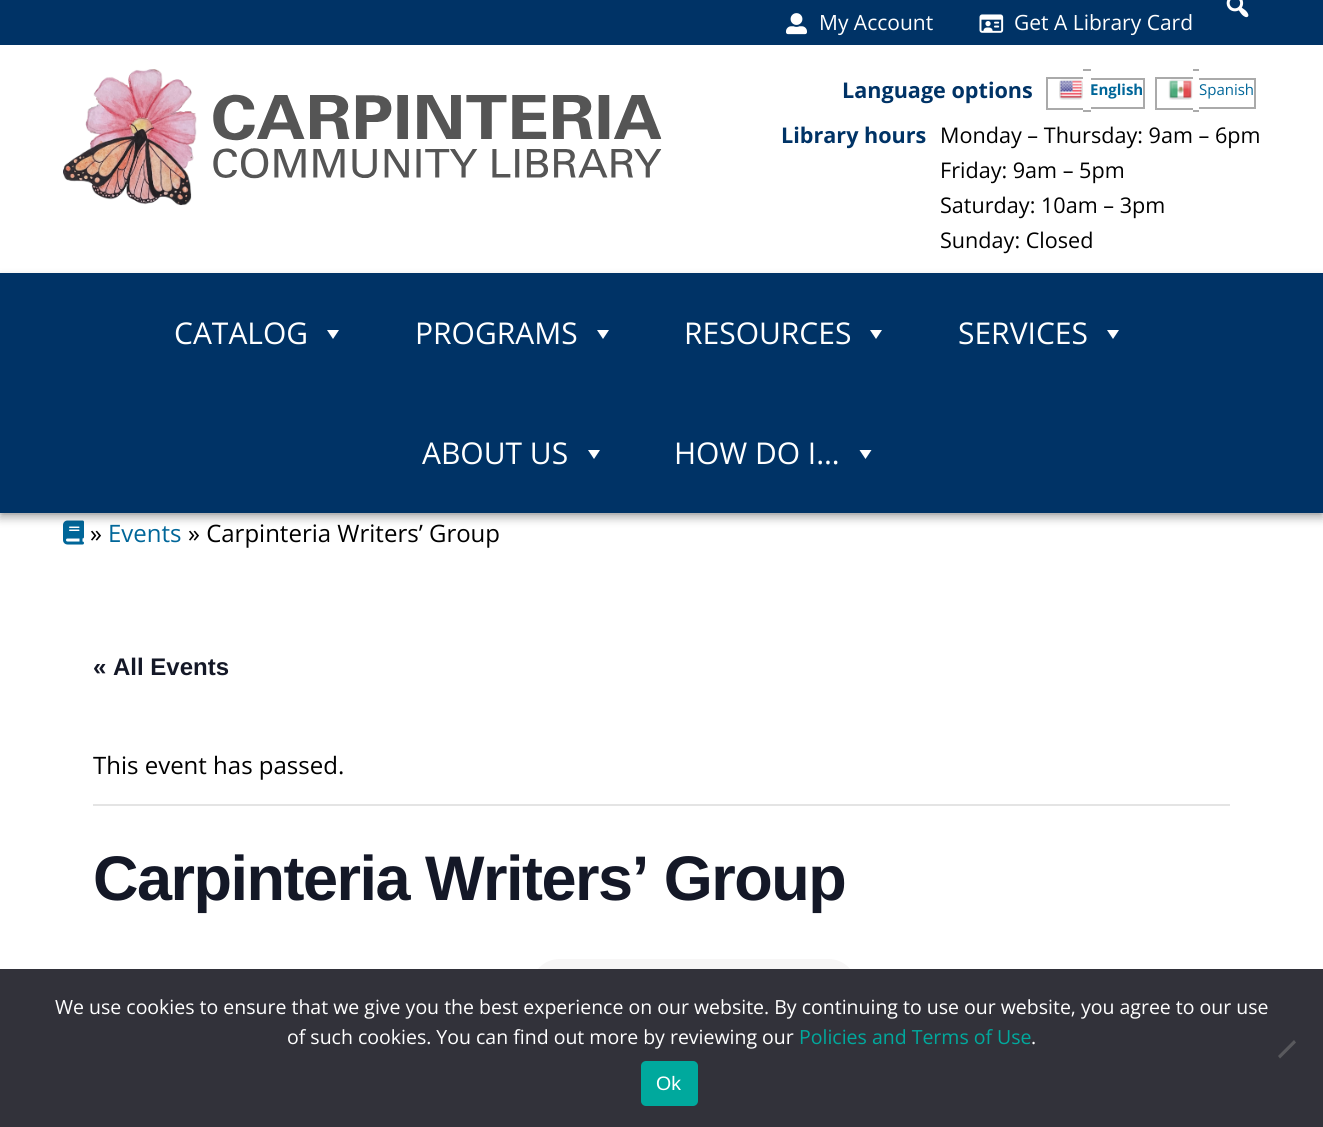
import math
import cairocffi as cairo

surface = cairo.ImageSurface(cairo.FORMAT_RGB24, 1323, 1127)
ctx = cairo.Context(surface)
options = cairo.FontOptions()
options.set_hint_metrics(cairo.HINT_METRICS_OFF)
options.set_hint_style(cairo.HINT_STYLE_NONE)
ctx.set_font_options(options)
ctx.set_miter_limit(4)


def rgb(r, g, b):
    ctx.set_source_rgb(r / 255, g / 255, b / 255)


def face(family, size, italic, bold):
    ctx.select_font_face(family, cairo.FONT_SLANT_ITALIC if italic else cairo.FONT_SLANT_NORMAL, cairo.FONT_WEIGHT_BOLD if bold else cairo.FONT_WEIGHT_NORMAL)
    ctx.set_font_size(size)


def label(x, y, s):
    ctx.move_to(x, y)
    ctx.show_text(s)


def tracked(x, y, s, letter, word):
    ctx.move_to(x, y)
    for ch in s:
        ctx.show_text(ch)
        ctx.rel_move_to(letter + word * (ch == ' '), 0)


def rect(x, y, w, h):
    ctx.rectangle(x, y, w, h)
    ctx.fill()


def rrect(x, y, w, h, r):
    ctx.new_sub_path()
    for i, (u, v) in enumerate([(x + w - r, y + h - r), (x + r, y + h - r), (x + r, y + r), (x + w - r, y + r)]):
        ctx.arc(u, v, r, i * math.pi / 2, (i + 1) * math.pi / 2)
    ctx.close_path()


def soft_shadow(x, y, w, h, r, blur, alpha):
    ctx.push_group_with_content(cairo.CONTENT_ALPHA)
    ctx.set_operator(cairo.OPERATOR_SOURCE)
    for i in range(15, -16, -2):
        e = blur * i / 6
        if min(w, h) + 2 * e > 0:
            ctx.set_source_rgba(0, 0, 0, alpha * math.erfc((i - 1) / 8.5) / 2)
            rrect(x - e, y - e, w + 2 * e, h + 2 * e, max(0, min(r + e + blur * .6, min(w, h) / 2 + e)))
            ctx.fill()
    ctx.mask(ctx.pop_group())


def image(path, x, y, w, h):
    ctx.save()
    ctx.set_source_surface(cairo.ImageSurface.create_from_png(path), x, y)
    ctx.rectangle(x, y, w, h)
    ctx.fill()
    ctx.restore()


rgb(255, 255, 255)
ctx.paint()
rgb(0, 51, 102)
rect(0, 0, 1323, 45)
image('image0.png', 1226, 0, 23, 18)
image('image1.png', 786, 13, 21, 22)
face('Open Sans', 21, 0, 0)
rgb(255, 255, 255)
label(819, 30, 'My Account')
image('image2.png', 979, 14, 25, 19)
label(1014, 30, 'Get A Library Card')
rgb(240, 240, 240)
rect(0, 513, 1323, 2)
image('image3.png', 63, 69, 599, 137)
face('Open Sans', 21.6, 0, 1)
rgb(0, 51, 102)
label(842, 98, 'Language options')
image('image4.png', 1059, 79, 24, 21)
face('Open Sans', 15, 0, 1)
rgb(0, 102, 153)
label(1090, 95, 'English')
rgb(170, 170, 170)
rect(1046, 77, 37, 2)
rect(1046, 108, 37, 2)
rect(1046, 77, 2, 33)
rect(1083, 69, 8, 2)
rect(1083, 110, 8, 2)
rect(1091, 78, 54, 2)
rect(1143, 78, 2, 30)
rect(1091, 107, 54, 2)
image('image5.png', 1168, 79, 25, 21)
face('Open Sans', 15, 0, 0)
rgb(0, 102, 153)
label(1199, 95, 'Spanish')
rgb(170, 170, 170)
rect(1155, 77, 38, 2)
rect(1155, 108, 38, 2)
rect(1155, 77, 2, 33)
rect(1193, 69, 6, 2)
rect(1193, 110, 6, 2)
rect(1199, 78, 57, 2)
rect(1254, 78, 2, 30)
rect(1199, 107, 57, 2)
face('Open Sans', 21.6, 0, 1)
rgb(0, 51, 102)
label(781, 143, 'Library hours')
face('Open Sans', 21.6, 0, 0)
rgb(0, 0, 0)
label(940, 143, 'Monday – Thursday: 9am – 6pm')
label(940, 178, 'Friday: 9am – 5pm')
label(940, 213, 'Saturday: 10am – 3pm')
label(940, 248, 'Sunday: Closed')
image('image6.png', 63, 520, 21, 25)
rgb(0, 0, 0)
soft_shadow(0, 278, 1323, 240, 0, 4.5, 0.3)
rgb(0, 51, 102)
rect(0, 273, 1323, 240)
face('Open Sans', 30, 0, 0)
rgb(255, 255, 255)
label(174, 344, 'CATALOG')
ctx.new_path()
ctx.move_to(339, 330)
ctx.line_to(333, 339)
ctx.line_to(327, 330)
ctx.close_path()
ctx.fill()
label(415, 344, 'PROGRAMS')
ctx.new_path()
ctx.move_to(609, 330)
ctx.line_to(603, 339)
ctx.line_to(597, 330)
ctx.close_path()
ctx.fill()
label(684, 344, 'RESOURCES')
ctx.new_path()
ctx.move_to(882, 330)
ctx.line_to(876, 339)
ctx.line_to(870, 330)
ctx.close_path()
ctx.fill()
label(958, 344, 'SERVICES')
ctx.new_path()
ctx.move_to(1119, 330)
ctx.line_to(1113, 339)
ctx.line_to(1107, 330)
ctx.close_path()
ctx.fill()
label(422, 464, 'ABOUT US')
ctx.new_path()
ctx.move_to(600, 450)
ctx.line_to(594, 459)
ctx.line_to(588, 450)
ctx.close_path()
ctx.fill()
label(674, 464, 'HOW DO I…')
ctx.new_path()
ctx.move_to(871.5, 450)
ctx.line_to(865.5, 459)
ctx.line_to(859.5, 450)
ctx.close_path()
ctx.fill()
face('Open Sans', 24, 0, 0)
rgb(0, 0, 0)
label(90, 542, '»')
rgb(0, 102, 153)
label(108, 542, 'Events')
rgb(0, 0, 0)
label(188, 542, '» Carpinteria Writers’ Group')
face('Liberation Sans', 24, 0, 1)
rgb(20, 24, 39)
label(93, 675, '« All Events')
rgb(228, 228, 228)
rect(93, 804, 1137, 2)
face('Open Sans', 24, 0, 0)
rgb(0, 0, 0)
label(93, 774, 'This event has passed.')
face('Liberation Sans', 63, 0, 1)
rgb(20, 24, 39)
tracked(93, 900, 'Carpinteria Writers’ Group', -1.5, 0)
rgb(247, 246, 246)
rrect(531, 959, 326, 57, 28.5)
ctx.fill()
rgb(50, 50, 58)
rect(0, 969, 1323, 158)
face('Open Sans', 19.5, 0, 0)
rgb(255, 255, 255)
label(55, 1014, 'We use cookies to ensure that we give you the best experience on our website. By continuing to use our website, you agree to our use')
label(287, 1044, 'of such cookies. You can find out more by reviewing our')
rgb(0, 169, 157)
label(799, 1044, 'Policies and Terms of Use')
rgb(255, 255, 255)
label(1031, 1044, '.')
rgb(89, 89, 93)
ctx.new_path()
ctx.move_to(1294, 1040)
ctx.line_to(1296, 1042.5)
ctx.line_to(1280, 1058.5)
ctx.line_to(1278, 1056)
ctx.close_path()
ctx.fill()
rgb(0, 169, 157)
rrect(641, 1061, 57, 45, 5)
ctx.fill()
face('Liberation Sans', 19.5, 0, 0)
rgb(255, 255, 255)
label(656, 1090, 'Ok')
surface.write_to_png('render.png')
